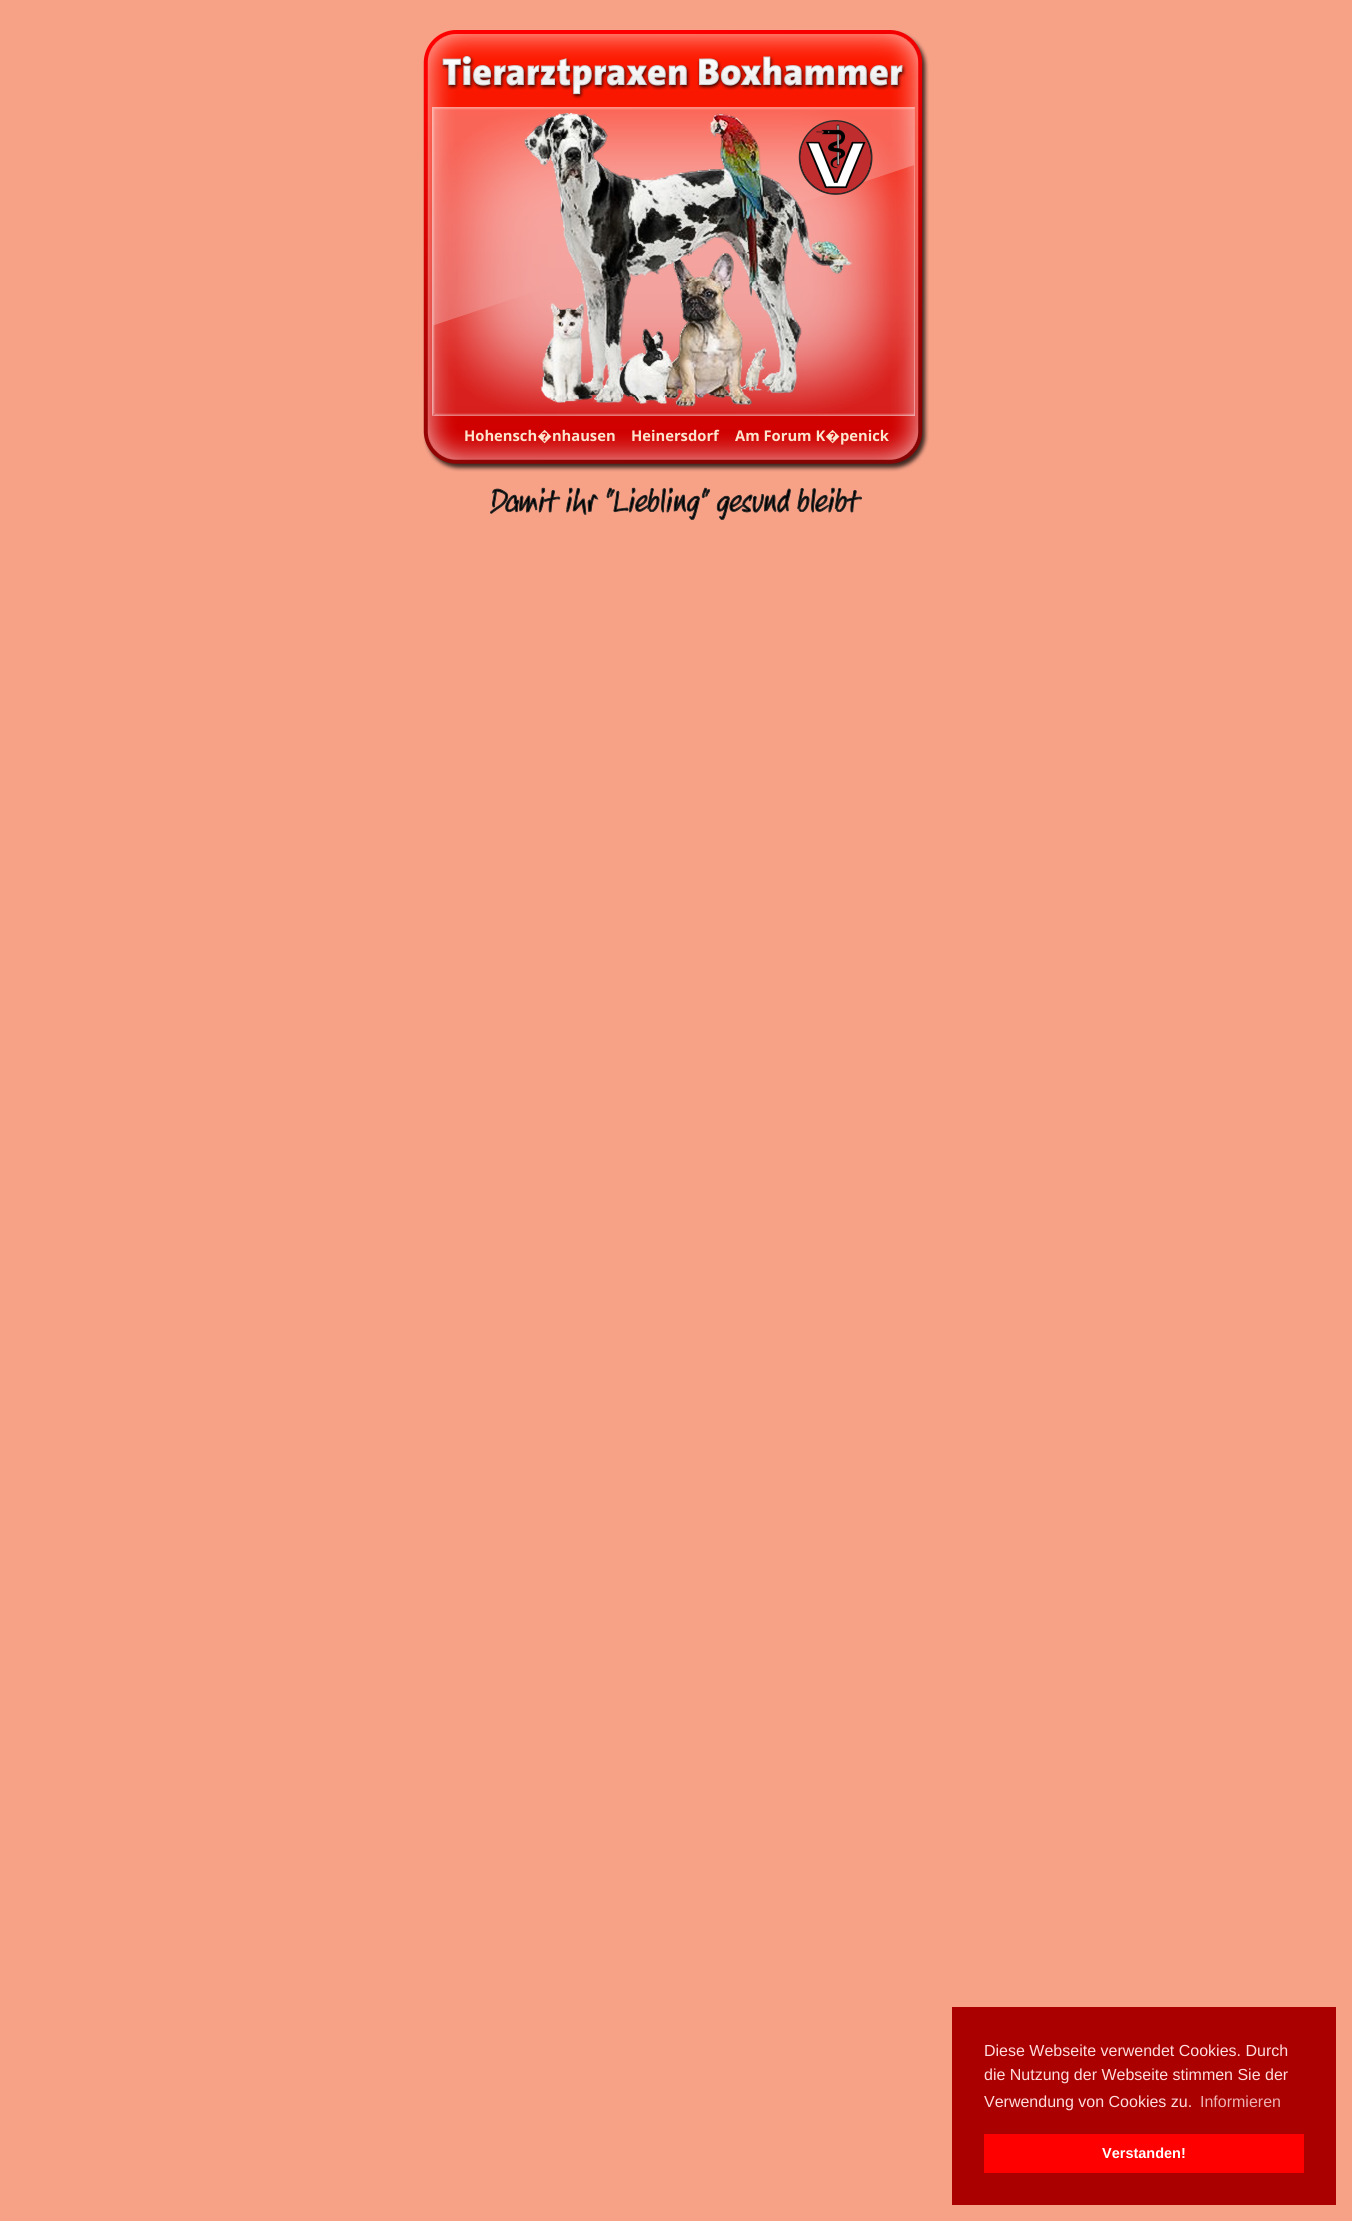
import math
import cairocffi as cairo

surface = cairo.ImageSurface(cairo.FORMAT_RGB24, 1352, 2221)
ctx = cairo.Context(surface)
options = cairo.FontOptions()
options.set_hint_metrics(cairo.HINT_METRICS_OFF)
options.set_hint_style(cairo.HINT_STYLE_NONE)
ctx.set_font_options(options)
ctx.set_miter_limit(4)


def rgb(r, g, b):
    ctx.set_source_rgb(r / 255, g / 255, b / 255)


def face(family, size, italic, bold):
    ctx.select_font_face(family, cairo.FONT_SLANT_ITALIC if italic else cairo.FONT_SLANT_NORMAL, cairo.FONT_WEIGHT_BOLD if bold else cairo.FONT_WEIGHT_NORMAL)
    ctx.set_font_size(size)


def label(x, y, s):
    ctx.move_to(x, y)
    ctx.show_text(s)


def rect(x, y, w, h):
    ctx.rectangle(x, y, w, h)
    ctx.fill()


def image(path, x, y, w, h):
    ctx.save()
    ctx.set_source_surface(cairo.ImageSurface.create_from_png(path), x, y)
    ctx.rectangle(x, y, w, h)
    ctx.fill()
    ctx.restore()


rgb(247, 161, 135)
ctx.paint()
image('image0.png', 423, 30, 506, 442)
face('Open Sans', 14.75, 0, 1)
rgb(253, 228, 204)
label(464, 441, 'Hohensch�nhausen')
label(631, 441, 'Heinersdorf')
label(735, 441, 'Am Forum K�penick')
image('image1.png', 490, 487, 372, 33)
rgb(170, 0, 0)
rect(952, 2007, 384, 198)
face('Liberation Sans', 16, 0, 0)
rgb(255, 221, 221)
label(984, 2056, 'Diese Webseite verwendet Cookies. Durch')
label(984, 2080, 'die Nutzung der Webseite stimmen Sie der')
label(984, 2107, 'Verwendung von Cookies zu.')
rgb(238, 177, 177)
label(1200, 2107, 'Informieren')
rgb(255, 0, 0)
rect(984, 2134, 320, 39)
face('Liberation Sans', 14.5, 0, 1)
rgb(255, 255, 255)
label(1102, 2158, 'Verstanden!')
surface.write_to_png('render.png')
